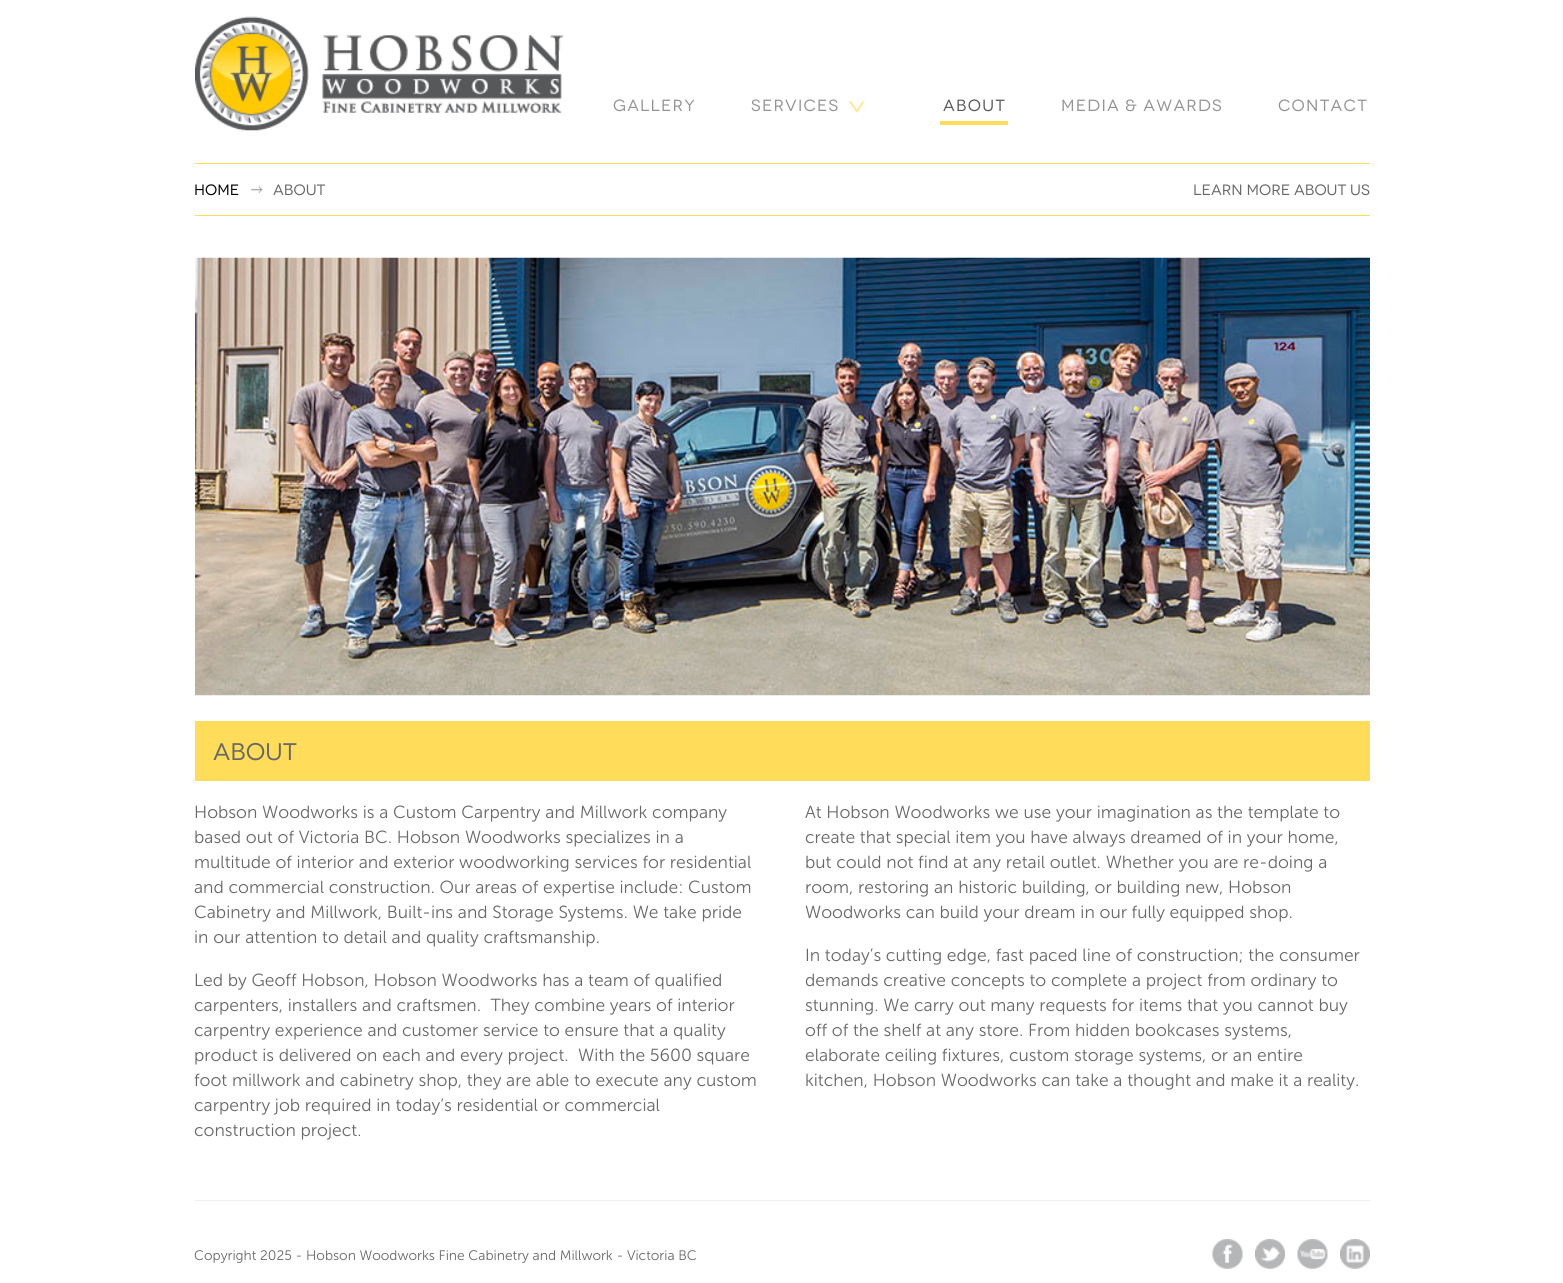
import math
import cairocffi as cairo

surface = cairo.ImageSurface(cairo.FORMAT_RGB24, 1563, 1283)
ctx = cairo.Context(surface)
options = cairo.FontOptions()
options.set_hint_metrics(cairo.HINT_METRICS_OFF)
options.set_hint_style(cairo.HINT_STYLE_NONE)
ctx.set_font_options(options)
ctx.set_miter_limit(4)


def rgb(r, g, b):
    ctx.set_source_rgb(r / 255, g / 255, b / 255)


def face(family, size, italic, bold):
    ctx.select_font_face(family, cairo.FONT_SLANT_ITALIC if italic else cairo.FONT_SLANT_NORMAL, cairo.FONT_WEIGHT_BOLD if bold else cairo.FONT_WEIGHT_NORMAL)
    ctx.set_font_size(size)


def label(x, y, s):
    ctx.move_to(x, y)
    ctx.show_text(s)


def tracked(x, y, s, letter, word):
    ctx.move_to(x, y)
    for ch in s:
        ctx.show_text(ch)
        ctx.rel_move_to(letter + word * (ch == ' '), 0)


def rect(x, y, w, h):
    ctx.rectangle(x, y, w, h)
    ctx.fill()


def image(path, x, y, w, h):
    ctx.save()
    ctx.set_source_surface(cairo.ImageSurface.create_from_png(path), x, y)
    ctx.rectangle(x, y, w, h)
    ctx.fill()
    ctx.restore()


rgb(255, 255, 255)
ctx.paint()
image('image0.png', 195, 16, 369, 115)
face('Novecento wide', 16.25, 0, 0)
rgb(146, 147, 149)
tracked(613, 111, 'Gallery', 1.25, 0)
image('image1.png', 848, 100, 16, 13)
tracked(751, 111, 'Services', 1.25, 0)
rgb(255, 221, 91)
rect(940, 121, 68, 4)
rgb(88, 89, 91)
tracked(943, 111, 'About', 1.25, 0)
rgb(146, 147, 149)
tracked(1061, 111, 'Media & Awards', 1.25, 0)
tracked(1278, 111, 'Contact', 1.25, 0)
rgb(255, 221, 91)
rect(195, 163, 1175, 1)
face('Novecento wide', 15, 0, 0)
rgb(0, 0, 0)
label(194, 195, 'Home')
image('image2.png', 251, 186, 12, 7)
rgb(104, 104, 104)
label(273, 195, 'About')
label(1193, 195, 'LEARN MORE ABOUT US')
rgb(255, 221, 91)
rect(195, 215, 1175, 1)
image('image3.png', 195, 257, 1175, 439)
rect(195, 721, 1175, 60)
face('Novecento wide', 24, 0, 0)
rgb(104, 104, 104)
label(213, 760, 'ABOUT')
face('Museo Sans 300 Light', 17.5, 0, 0)
label(194, 818, 'Hobson Woodworks is a Custom Carpentry and Millwork company')
label(194, 843, 'based out of Victoria BC. Hobson Woodworks specializes in a')
label(194, 868, 'multitude of interior and exterior woodworking services for residential')
label(194, 893, 'and commercial construction. Our areas of expertise include: Custom')
label(194, 918, 'Cabinetry and Millwork, Built-ins and Storage Systems. We take pride')
label(194, 943, 'in our attention to detail and quality craftsmanship.')
label(194, 986, 'Led by Geoff Hobson, Hobson Woodworks has a team of qualified')
label(194, 1011, 'carpenters, installers and craftsmen.  They combine years of interior')
label(194, 1036, 'carpentry experience and customer service to ensure that a quality')
label(194, 1061, 'product is delivered on each and every project.  With the 5600 square')
label(194, 1086, 'foot millwork and cabinetry shop, they are able to execute any custom')
label(194, 1111, 'carpentry job required in today’s residential or commercial')
label(194, 1136, 'construction project.')
label(805, 818, 'At Hobson Woodworks we use your imagination as the template to')
label(805, 843, 'create that special item you have always dreamed of in your home,')
label(805, 868, 'but could not find at any retail outlet. Whether you are re-doing a')
label(805, 893, 'room, restoring an historic building, or building new, Hobson')
label(805, 918, 'Woodworks can build your dream in our fully equipped shop.')
label(805, 961, 'In today’s cutting edge, fast paced line of construction; the consumer')
label(805, 986, 'demands creative concepts to complete a project from ordinary to')
label(805, 1011, 'stunning. We carry out many requests for items that you cannot buy')
label(805, 1036, 'off of the shelf at any store. From hidden bookcases systems,')
label(805, 1061, 'elaborate ceiling fixtures, custom storage systems, or an entire')
label(805, 1086, 'kitchen, Hobson Woodworks can take a thought and make it a reality.')
rgb(239, 239, 239)
rect(195, 1200, 1175, 1)
face('Museo Sans 300 Light', 13.75, 0, 0)
rgb(104, 104, 104)
label(194, 1260, 'Copyright 2025 - Hobson Woodworks Fine Cabinetry and Millwork - Victoria BC')
image('image4.png', 1212, 1239, 31, 30)
image('image5.png', 1255, 1239, 30, 30)
image('image6.png', 1297, 1239, 31, 30)
image('image7.png', 1340, 1239, 30, 30)
surface.write_to_png('render.png')
